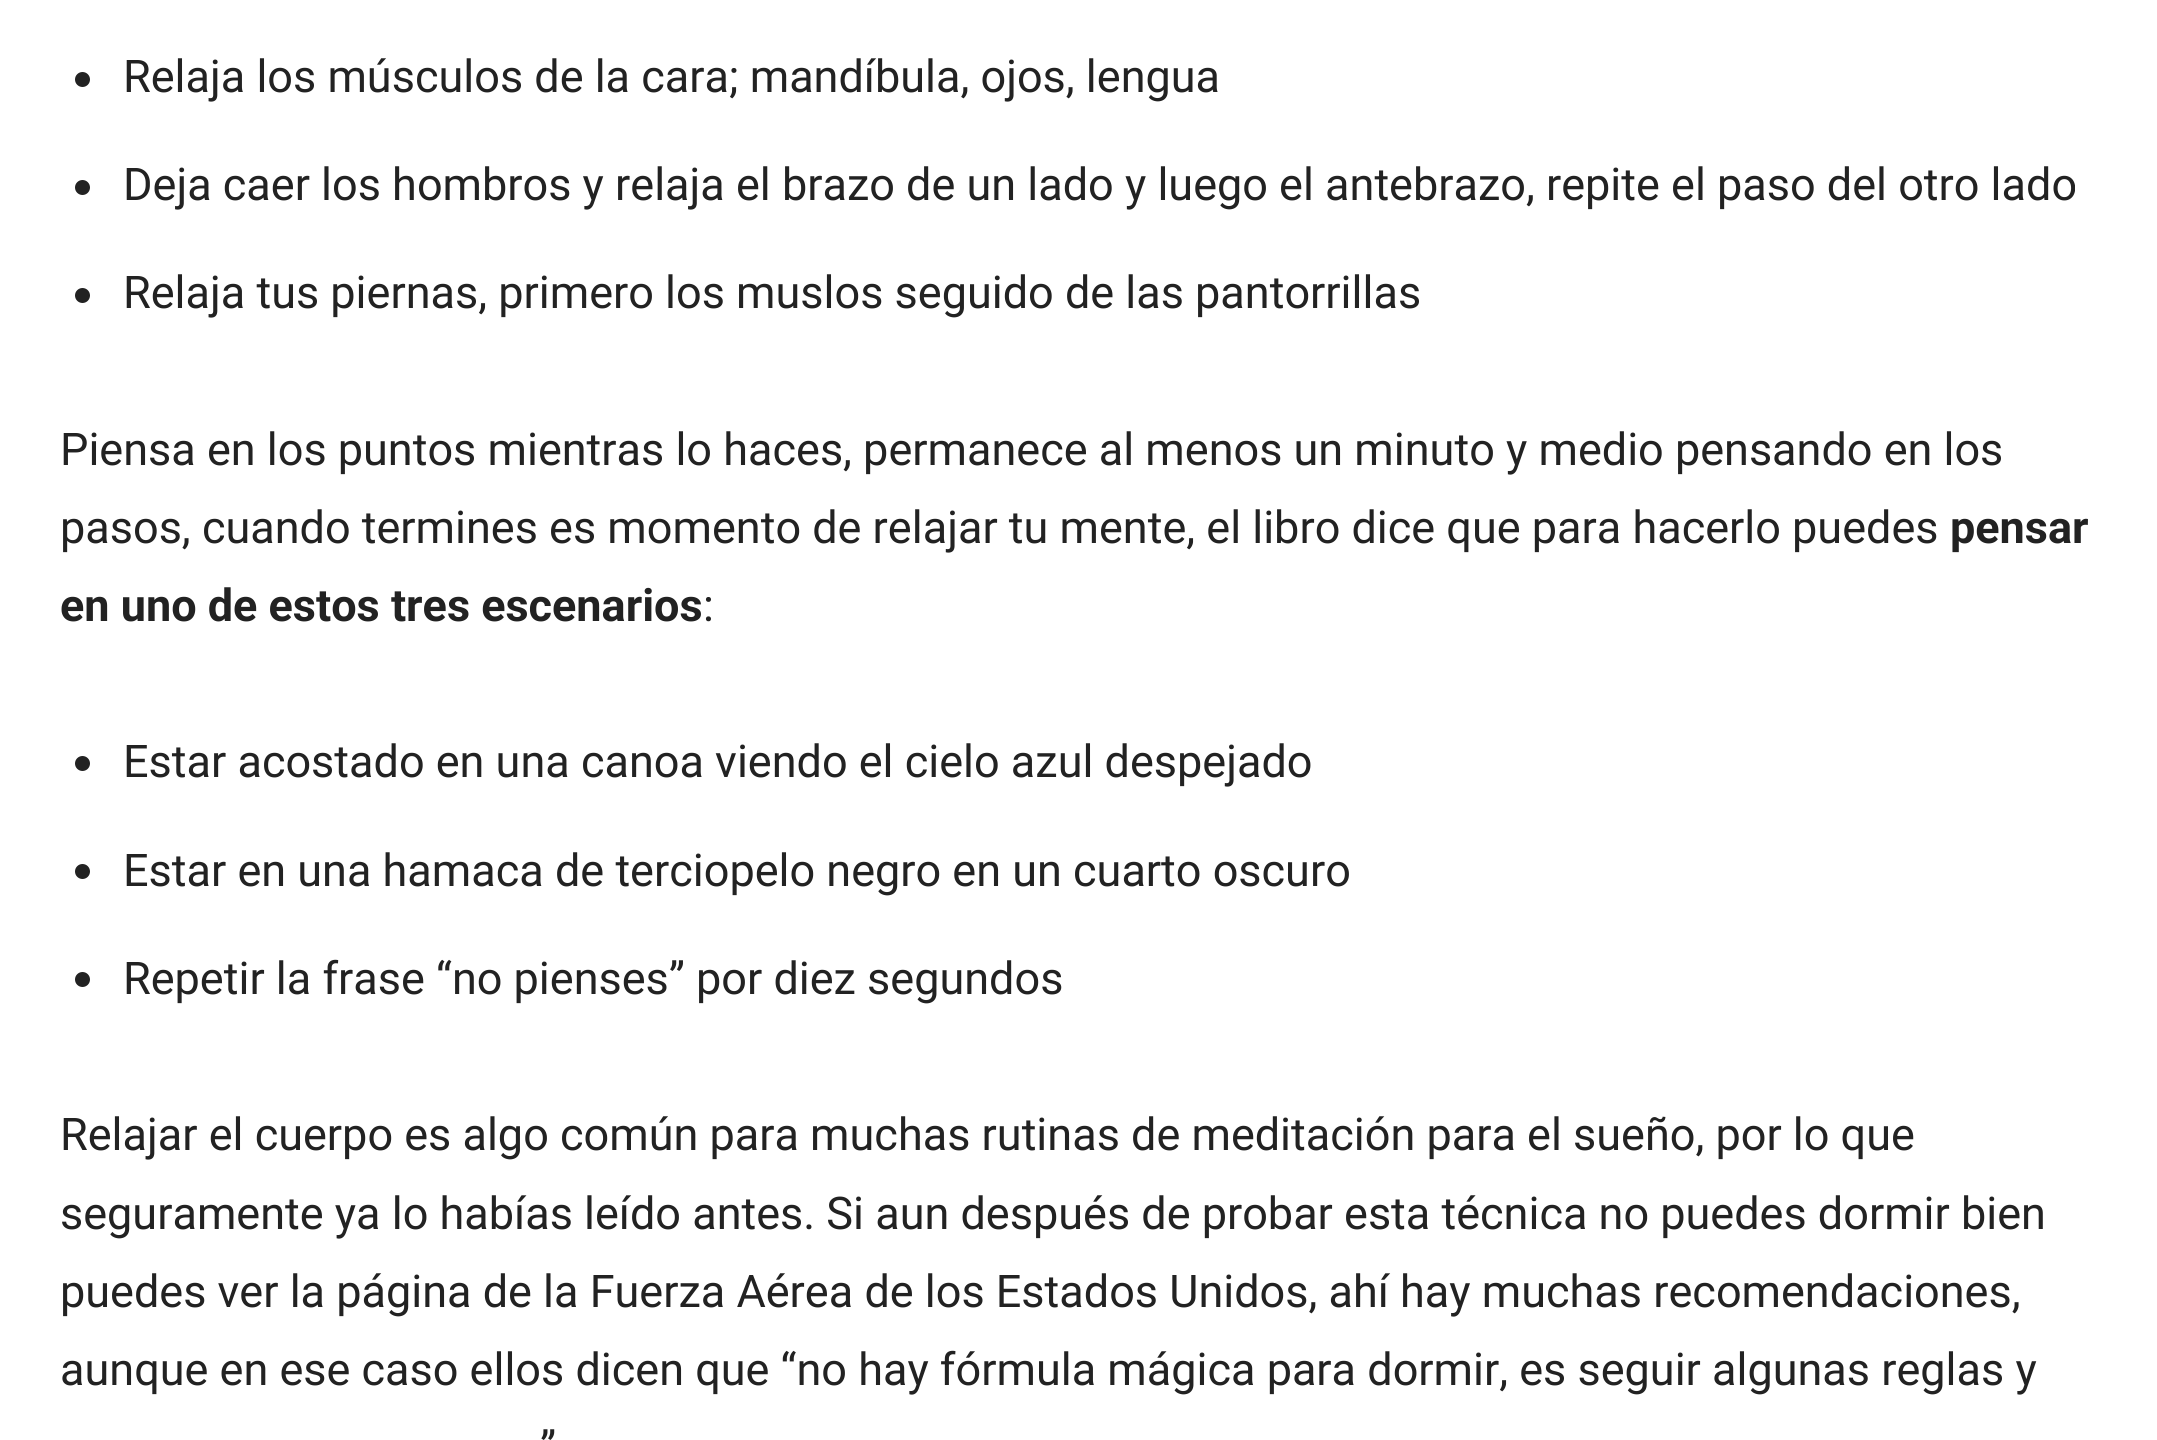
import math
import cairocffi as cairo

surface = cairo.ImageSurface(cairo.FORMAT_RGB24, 2157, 1440)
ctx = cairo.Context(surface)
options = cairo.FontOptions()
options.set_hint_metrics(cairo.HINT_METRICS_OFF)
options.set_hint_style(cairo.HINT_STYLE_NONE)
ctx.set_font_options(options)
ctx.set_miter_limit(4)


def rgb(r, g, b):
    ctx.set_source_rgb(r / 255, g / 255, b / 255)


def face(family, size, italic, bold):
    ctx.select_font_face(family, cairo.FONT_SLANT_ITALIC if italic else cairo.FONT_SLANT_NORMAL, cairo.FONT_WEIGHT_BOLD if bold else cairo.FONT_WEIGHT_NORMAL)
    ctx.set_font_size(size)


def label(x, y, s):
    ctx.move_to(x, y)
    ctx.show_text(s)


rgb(255, 255, 255)
ctx.paint()
rgb(34, 34, 34)
ctx.arc(82.5, 79.5, 7.5, 0, 2 * math.pi)
ctx.fill()
face('Roboto', 45, 0, 0)
label(123, 92, 'Relaja los músculos de la cara; mandíbula, ojos, lengua')
ctx.new_path()
ctx.arc(82.5, 187.5, 7.5, 0, 2 * math.pi)
ctx.fill()
label(123, 200, 'Deja caer los hombros y relaja el brazo de un lado y luego el antebrazo, repite el paso del otro lado')
ctx.new_path()
ctx.arc(82.5, 295.5, 7.5, 0, 2 * math.pi)
ctx.fill()
label(123, 308, 'Relaja tus piernas, primero los muslos seguido de las pantorrillas')
label(60, 465, 'Piensa en los puntos mientras lo haces, permanece al menos un minuto y medio pensando en los')
label(60, 543, 'pasos, cuando termines es momento de relajar tu mente, el libro dice que para hacerlo puedes')
face('Roboto', 45, 0, 1)
label(1950, 543, 'pensar')
label(60, 621, 'en uno de estos tres escenarios')
face('Roboto', 45, 0, 0)
label(703, 621, ':')
ctx.new_path()
ctx.arc(82.5, 763.5, 7.5, 0, 2 * math.pi)
ctx.fill()
label(123, 777, 'Estar acostado en una canoa viendo el cielo azul despejado')
ctx.new_path()
ctx.arc(82.5, 871.5, 7.5, 0, 2 * math.pi)
ctx.fill()
label(123, 886, 'Estar en una hamaca de terciopelo negro en un cuarto oscuro')
ctx.new_path()
ctx.arc(82.5, 979.5, 7.5, 0, 2 * math.pi)
ctx.fill()
label(123, 994, 'Repetir la frase “no pienses” por diez segundos')
label(60, 1150, 'Relajar el cuerpo es algo común para muchas rutinas de meditación para el sueño, por lo que')
label(60, 1229, 'seguramente ya lo habías leído antes. Si aun después de probar esta técnica no puedes dormir bien')
label(60, 1307, 'puedes ver la página de la Fuerza Aérea de los Estados Unidos, ahí hay muchas recomendaciones,')
label(60, 1385, 'aunque en ese caso ellos dicen que “no hay fórmula mágica para dormir, es seguir algunas reglas y')
label(540, 1463, '”')
surface.write_to_png('render.png')
